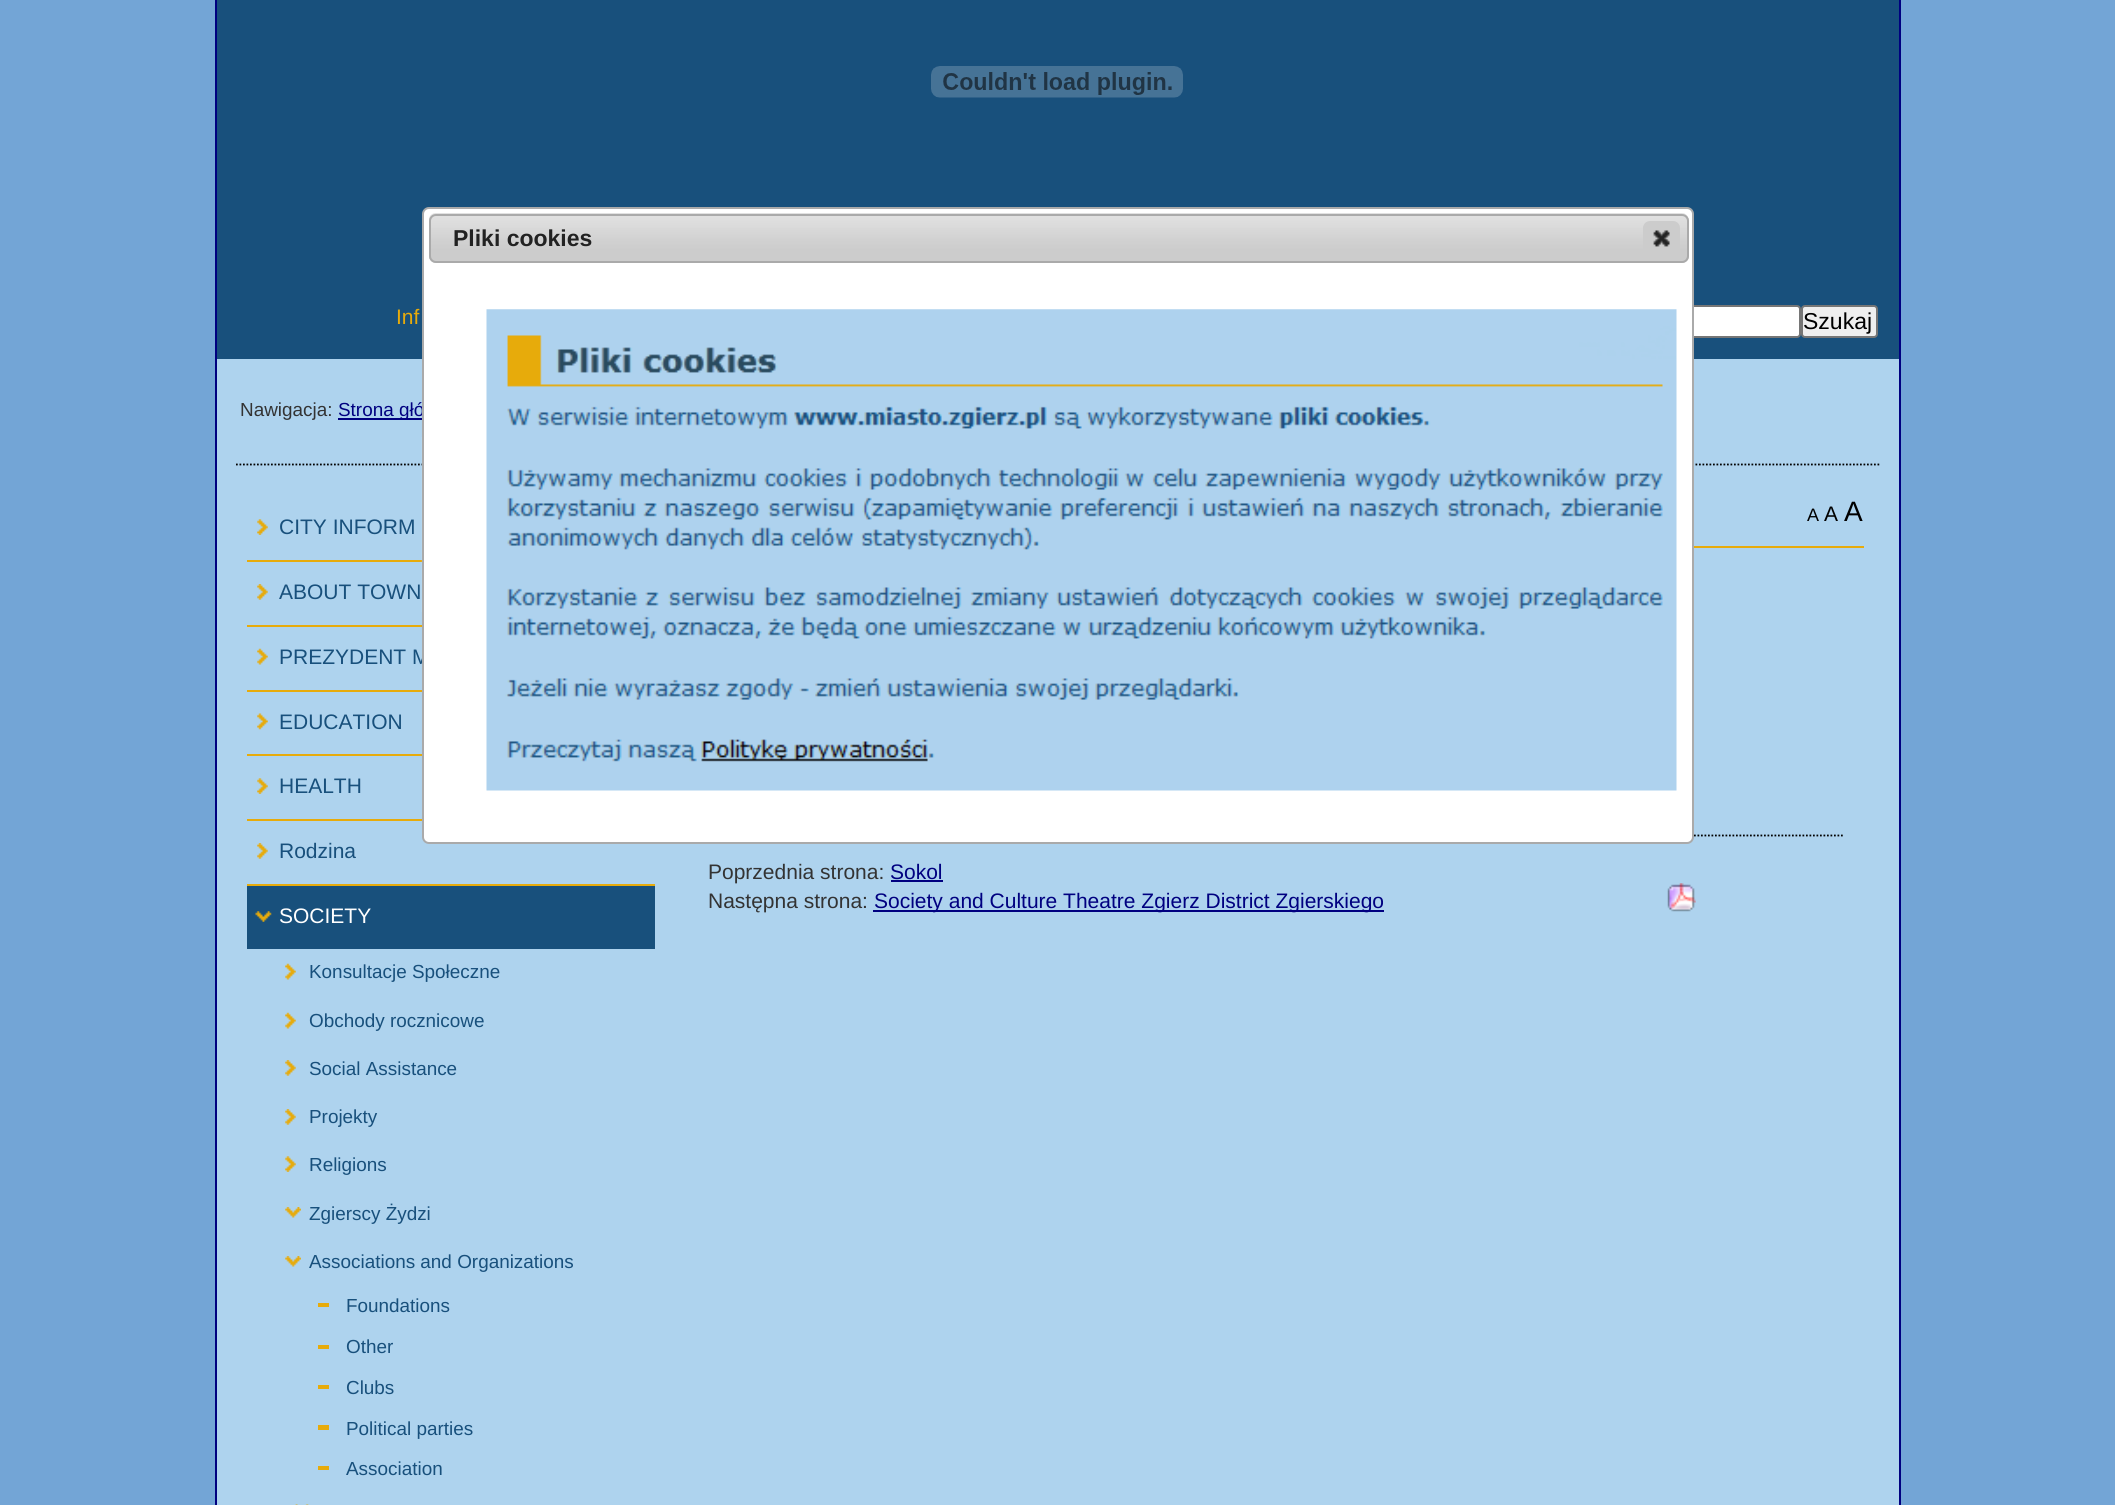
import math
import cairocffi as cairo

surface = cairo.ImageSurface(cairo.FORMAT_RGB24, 2115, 1505)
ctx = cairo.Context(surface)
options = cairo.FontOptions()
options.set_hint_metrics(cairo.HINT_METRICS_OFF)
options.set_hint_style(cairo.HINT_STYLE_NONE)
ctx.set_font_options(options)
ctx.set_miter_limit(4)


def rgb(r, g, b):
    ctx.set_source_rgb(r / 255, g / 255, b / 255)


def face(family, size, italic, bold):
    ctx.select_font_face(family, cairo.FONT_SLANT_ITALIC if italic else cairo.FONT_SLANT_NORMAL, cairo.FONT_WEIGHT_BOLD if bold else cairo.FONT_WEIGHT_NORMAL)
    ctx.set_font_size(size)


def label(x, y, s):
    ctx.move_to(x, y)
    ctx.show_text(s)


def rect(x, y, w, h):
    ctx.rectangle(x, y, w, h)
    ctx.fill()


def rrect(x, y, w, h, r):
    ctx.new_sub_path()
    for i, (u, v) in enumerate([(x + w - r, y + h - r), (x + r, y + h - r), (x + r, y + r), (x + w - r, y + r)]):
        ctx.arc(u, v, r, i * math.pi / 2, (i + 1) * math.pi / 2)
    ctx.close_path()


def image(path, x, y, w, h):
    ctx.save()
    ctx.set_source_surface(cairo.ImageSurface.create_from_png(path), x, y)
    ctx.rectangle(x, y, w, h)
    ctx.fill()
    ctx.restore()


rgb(115, 165, 214)
ctx.paint()
rgb(174, 211, 238)
rect(217, 359, 1682, 1146)
ctx.rectangle(216, -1, 1684, 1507)
rgb(0, 0, 128)
ctx.stroke()
rgb(24, 80, 124)
rect(217, 0, 1682, 359)
rgb(255, 255, 255)
rrect(1485, 306, 315, 31, 3)
ctx.fill_preserve()
rgb(118, 118, 118)
ctx.stroke()
ctx.new_path()
ctx.move_to(236, 464.5)
ctx.line_to(1879.5, 464.5)
rgb(0, 0, 0)
ctx.set_line_width(1.8)
ctx.set_dash([1.75, 1.75])
ctx.stroke()
rgb(0, 0, 128)
rect(338, 418, 84, 2)
face('Liberation Sans', 18.9, 0, 0)
label(338, 416, 'Strona głó')
face('Liberation Sans', 21, 0, 0)
rgb(24, 80, 124)
label(279, 664, 'PREZYDENT M')
ctx.new_path()
ctx.move_to(728, 835.5)
ctx.line_to(1843, 835.5)
rgb(0, 0, 0)
ctx.stroke()
rgb(255, 255, 255)
rrect(423, 208, 1270, 635, 6)
ctx.fill_preserve()
rgb(170, 170, 170)
ctx.set_line_width(2)
ctx.set_dash([])
ctx.stroke()
rgb(231, 171, 11)
rect(247, 560, 175, 2)
ctx.set_source_rgba(1, 1, 1, 0.06)
rect(421, 437, 1, 175)
rgb(204, 204, 204)
rrect(429, 214, 1260, 49, 7)
ctx.fill()
image('image0.png', 429, 213, 1260, 46)
rrect(430, 215, 1258, 47, 6)
rgb(170, 170, 170)
ctx.stroke()
face('Liberation Sans', 23, 0, 1)
rgb(34, 34, 34)
label(453, 246, 'Pliki cookies')
rgb(204, 204, 204)
rrect(1643, 221, 37, 35, 7)
ctx.fill()
image('image1.png', 1653, 230, 17, 17)
image('image2.png', 486, 309, 1191, 482)
image('image3.png', 931, 66, 252, 32)
face('Liberation Sans', 21, 0, 0)
rgb(231, 171, 11)
label(396, 324, 'Inf')
rgb(239, 239, 239)
rrect(1802, 306, 75, 31, 3)
ctx.fill_preserve()
rgb(118, 118, 118)
ctx.stroke()
face('Liberation Sans', 23, 0, 0)
rgb(0, 0, 0)
label(1803, 329, 'Szukaj')
face('Liberation Sans', 18.9, 0, 0)
rgb(51, 51, 51)
label(240, 416, 'Nawigacja:')
image('image4.png', 257, 519, 11, 16)
face('Liberation Sans', 21, 0, 0)
rgb(24, 80, 124)
label(279, 534, 'CITY INFORM')
rgb(231, 171, 11)
rect(247, 625, 175, 2)
image('image5.png', 257, 584, 11, 16)
rgb(24, 80, 124)
label(279, 599, 'ABOUT TOWN')
rgb(231, 171, 11)
rect(247, 690, 175, 2)
image('image6.png', 257, 648, 11, 17)
rect(247, 754, 175, 2)
image('image7.png', 257, 713, 11, 17)
rgb(24, 80, 124)
label(279, 729, 'EDUCATION')
rgb(231, 171, 11)
rect(247, 819, 175, 2)
image('image4.png', 257, 778, 11, 16)
rgb(24, 80, 124)
label(279, 793, 'HEALTH')
rgb(231, 171, 11)
rect(247, 884, 408, 2)
image('image5.png', 257, 843, 11, 16)
rgb(24, 80, 124)
label(279, 858, 'Rodzina')
rect(247, 886, 408, 63)
image('image8.png', 255, 911, 17, 11)
rgb(255, 255, 255)
label(279, 923, 'SOCIETY')
image('image6.png', 285, 963, 11, 17)
face('Liberation Sans', 18.9, 0, 0)
rgb(24, 80, 124)
label(309, 978, 'Konsultacje Społeczne')
image('image6.png', 285, 1012, 11, 17)
label(309, 1027, 'Obchody rocznicowe')
image('image5.png', 285, 1060, 11, 16)
label(309, 1075, 'Social Assistance')
image('image5.png', 285, 1109, 11, 16)
label(309, 1123, 'Projekty')
image('image4.png', 285, 1156, 11, 16)
label(309, 1171, 'Religions')
image('image9.png', 285, 1207, 16, 11)
label(309, 1220, 'Zgierscy Żydzi')
image('image9.png', 285, 1256, 16, 11)
label(309, 1268, 'Associations and Organizations')
rgb(231, 171, 11)
rect(318, 1303, 11, 4)
rgb(24, 80, 124)
label(346, 1312, 'Foundations')
rgb(231, 171, 11)
rect(318, 1345, 11, 4)
rgb(24, 80, 124)
label(346, 1353, 'Other')
rgb(231, 171, 11)
rect(318, 1385, 11, 4)
rgb(24, 80, 124)
label(346, 1394, 'Clubs')
rgb(231, 171, 11)
rect(318, 1425, 11, 5)
rgb(24, 80, 124)
label(346, 1435, 'Political parties')
rgb(231, 171, 11)
rect(318, 1466, 11, 4)
rgb(24, 80, 124)
label(346, 1475, 'Association')
image('image10.png', 295, 1504, 14, 1)
face('Liberation Sans', 18, 0, 0)
rgb(0, 0, 0)
label(1807, 521, 'A')
face('Liberation Sans', 21, 0, 0)
label(1824, 521, 'A')
face('Liberation Sans', 28, 0, 0)
label(1844, 521, 'A')
rgb(231, 171, 11)
rect(1694, 546, 170, 2)
face('Liberation Sans', 21, 0, 0)
rgb(51, 51, 51)
label(708, 879, 'Poprzednia strona:')
rgb(0, 0, 128)
label(890, 879, 'Sokol')
rect(891, 880, 52, 2)
rgb(51, 51, 51)
label(708, 908, 'Następna strona:')
rgb(0, 0, 128)
rect(873, 910, 511, 2)
label(874, 908, 'Society and Culture Theatre Zgierz District Zgierskiego')
image('image11.png', 1667, 883, 29, 29)
surface.write_to_png('render.png')
